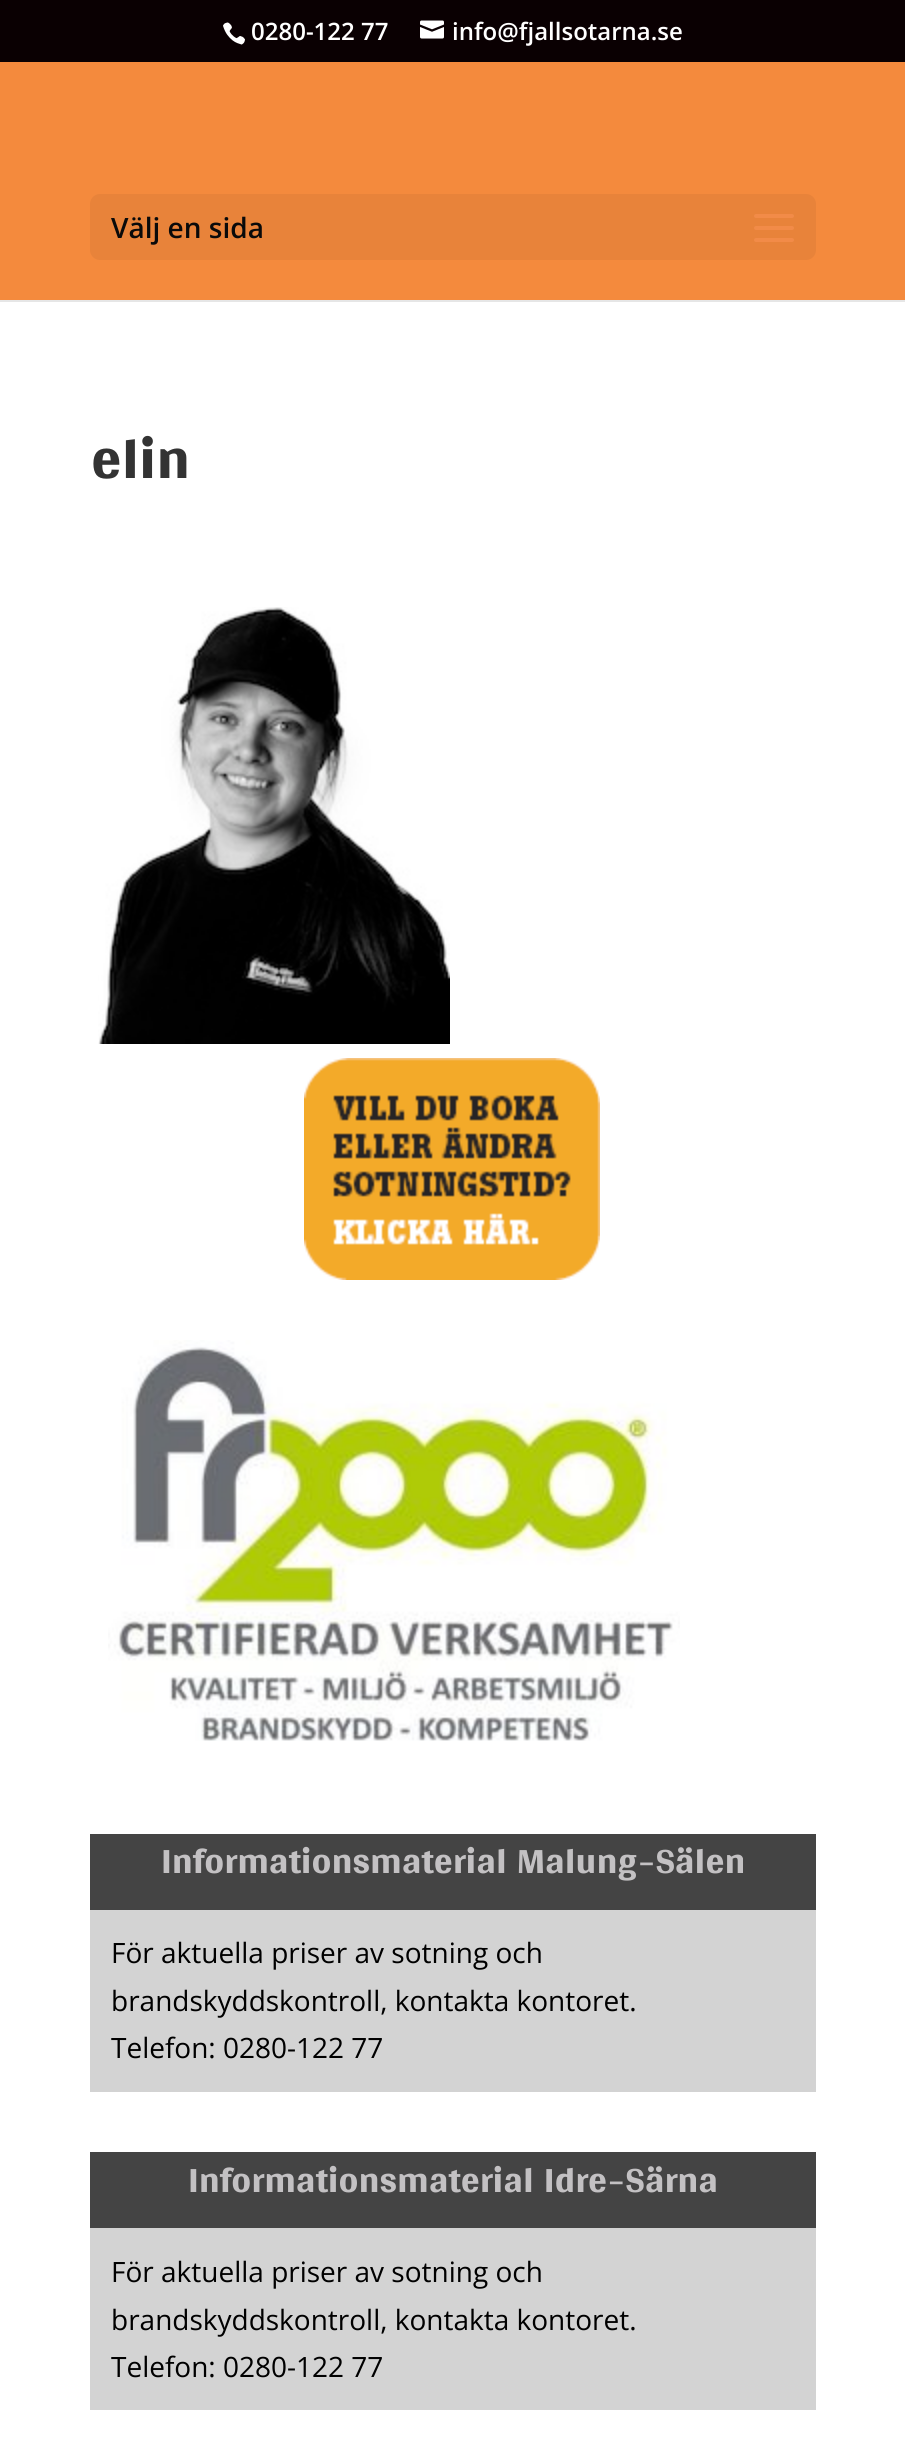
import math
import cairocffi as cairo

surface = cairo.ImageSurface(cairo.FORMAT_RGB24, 905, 2446)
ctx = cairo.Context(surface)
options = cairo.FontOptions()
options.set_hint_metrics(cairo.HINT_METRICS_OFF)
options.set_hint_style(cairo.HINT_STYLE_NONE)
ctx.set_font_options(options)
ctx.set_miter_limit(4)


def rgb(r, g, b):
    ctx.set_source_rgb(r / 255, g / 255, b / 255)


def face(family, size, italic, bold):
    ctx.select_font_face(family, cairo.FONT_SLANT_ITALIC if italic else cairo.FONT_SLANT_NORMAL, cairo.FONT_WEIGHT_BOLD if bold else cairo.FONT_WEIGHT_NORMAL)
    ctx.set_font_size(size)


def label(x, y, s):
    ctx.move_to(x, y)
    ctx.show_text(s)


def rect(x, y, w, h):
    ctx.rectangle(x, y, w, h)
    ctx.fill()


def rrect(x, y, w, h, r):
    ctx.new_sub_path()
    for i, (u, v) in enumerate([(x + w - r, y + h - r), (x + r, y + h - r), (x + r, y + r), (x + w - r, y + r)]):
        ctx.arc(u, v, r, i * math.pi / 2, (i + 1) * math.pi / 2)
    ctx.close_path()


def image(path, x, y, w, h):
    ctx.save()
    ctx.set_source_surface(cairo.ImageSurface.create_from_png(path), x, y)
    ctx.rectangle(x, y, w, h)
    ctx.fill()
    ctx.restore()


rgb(255, 255, 255)
ctx.paint()
rgb(10, 0, 2)
rect(0, 0, 905, 62)
image('image0.png', 223, 22, 22, 23)
face('Open Sans SemiBold', 24, 0, 0)
rgb(255, 255, 255)
label(251, 40, '0280-122 77')
image('image1.png', 420, 20, 24, 19)
label(452, 40, 'info@fjallsotarna.se')
rgb(230, 230, 230)
rect(0, 300, 905, 2)
rgb(244, 138, 61)
rect(0, 62, 905, 238)
rgb(232, 131, 58)
rrect(90, 194, 726, 66, 10)
ctx.fill()
face('Open Sans SemiBold', 28, 0, 0)
rgb(10, 10, 10)
label(111, 238, 'Välj en sida')
image('image2.png', 754, 214, 40, 28)
face('Gidugu', 90, 0, 0)
rgb(51, 51, 51)
label(91, 478, 'elin')
image('image3.png', 98, 607, 352, 437)
image('image4.png', 304, 1058, 296, 222)
image('image5.png', 108, 1340, 572, 401)
rgb(68, 68, 68)
rect(90, 1834, 726, 76)
face('Gidugu', 56, 0, 0)
rgb(195, 193, 195)
label(161, 1873, 'Informationsmaterial Malung-Sälen')
rgb(211, 211, 211)
rect(90, 1910, 726, 182)
face('Open Sans', 28, 0, 0)
rgb(0, 0, 0)
label(111, 1963, 'För aktuella priser av sotning och')
label(111, 2011, 'brandskyddskontroll, kontakta kontoret.')
label(111, 2058, 'Telefon: 0280-122 77')
rgb(68, 68, 68)
rect(90, 2152, 726, 76)
face('Gidugu', 56, 0, 0)
rgb(195, 193, 195)
label(188, 2192, 'Informationsmaterial Idre-Särna')
rgb(211, 211, 211)
rect(90, 2228, 726, 182)
face('Open Sans', 28, 0, 0)
rgb(0, 0, 0)
label(111, 2282, 'För aktuella priser av sotning och')
label(111, 2330, 'brandskyddskontroll, kontakta kontoret.')
label(111, 2377, 'Telefon: 0280-122 77')
surface.write_to_png('render.png')
